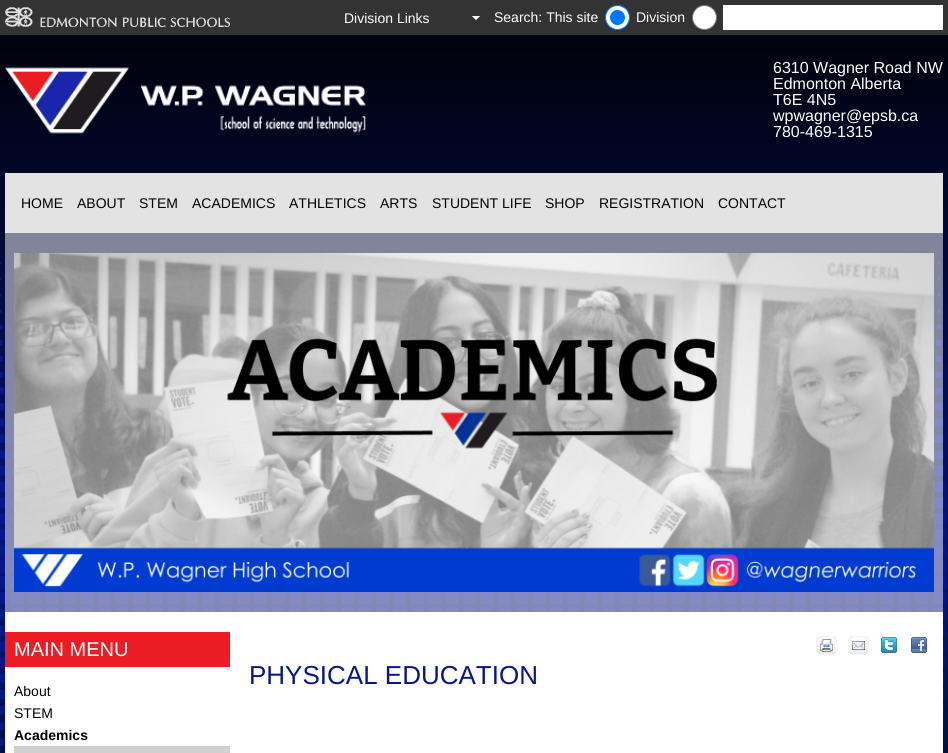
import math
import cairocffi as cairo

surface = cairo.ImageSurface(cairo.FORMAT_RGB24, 948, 753)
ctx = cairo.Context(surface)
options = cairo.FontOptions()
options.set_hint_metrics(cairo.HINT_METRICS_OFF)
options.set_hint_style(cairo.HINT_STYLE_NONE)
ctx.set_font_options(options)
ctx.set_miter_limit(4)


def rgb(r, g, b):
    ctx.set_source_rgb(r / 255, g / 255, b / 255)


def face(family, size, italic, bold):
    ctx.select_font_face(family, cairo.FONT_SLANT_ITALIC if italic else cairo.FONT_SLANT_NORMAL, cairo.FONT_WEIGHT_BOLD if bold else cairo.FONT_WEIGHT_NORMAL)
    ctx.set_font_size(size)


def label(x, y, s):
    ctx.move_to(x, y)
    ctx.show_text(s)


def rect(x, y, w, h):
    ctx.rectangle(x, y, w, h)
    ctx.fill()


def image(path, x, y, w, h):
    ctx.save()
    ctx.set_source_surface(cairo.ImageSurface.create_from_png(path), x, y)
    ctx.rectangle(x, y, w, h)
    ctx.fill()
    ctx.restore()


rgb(255, 255, 255)
ctx.paint()
image('image0.png', 0, 35, 948, 718)
rgb(51, 51, 51)
rect(0, 0, 948, 35)
image('image1.png', 5, 7, 225, 20)
image('image2.png', 472, 16, 8, 4)
face('Liberation Sans', 14, 0, 0)
rgb(255, 255, 255)
label(344, 23, 'Division Links')
label(494, 22, 'Search: This site')
ctx.new_path()
ctx.arc(617.5, 17.5, 12, 0, 2 * math.pi)
ctx.fill_preserve()
rgb(0, 117, 255)
ctx.set_line_width(1)
ctx.stroke()
ctx.arc(617.5, 17.5, 7.5, 0, 2 * math.pi)
ctx.fill()
rgb(255, 255, 255)
label(636, 22, 'Division')
ctx.new_path()
ctx.arc(704.5, 17.5, 12, 0, 2 * math.pi)
ctx.fill_preserve()
rgb(118, 118, 118)
ctx.stroke()
rgb(255, 255, 255)
rect(723, 5, 220, 25)
image('image3.png', 5, 67, 361, 67)
face('Liberation Sans', 16, 0, 0)
label(773, 73, '6310 Wagner Road NW')
label(773, 89, 'Edmonton Alberta')
label(773, 105, 'T6E 4N5')
label(773, 121, 'wpwagner@epsb.ca')
label(773, 137, '780-469-1315')
rgb(227, 227, 227)
rect(5, 173, 938, 60)
face('Liberation Sans', 14, 0, 0)
rgb(0, 0, 0)
label(21, 208, 'HOME')
label(77, 208, 'ABOUT')
label(139, 208, 'STEM')
label(192, 208, 'ACADEMICS')
label(289, 208, 'ATHLETICS')
label(380, 208, 'ARTS')
label(432, 208, 'STUDENT LIFE')
label(545, 208, 'SHOP')
label(599, 208, 'REGISTRATION')
label(718, 208, 'CONTACT')
ctx.set_source_rgba(1, 1, 1, 0.5)
rect(5, 233, 938, 379)
image('image4.png', 14, 253, 920, 339)
rgb(255, 255, 255)
rect(5, 612, 938, 141)
rgb(235, 28, 35)
rect(5, 632, 225, 35)
face('Liberation Sans', 20, 0, 0)
rgb(255, 255, 255)
label(14, 656, 'MAIN MENU')
face('Liberation Sans', 14, 0, 0)
rgb(0, 0, 0)
label(14, 696, 'About')
label(14, 718, 'STEM')
face('Liberation Sans', 14, 0, 1)
label(14, 740, 'Academics')
rgb(208, 208, 208)
rect(14, 746, 216, 7)
image('image5.png', 816, 636, 21, 19)
image('image6.png', 848, 636, 21, 19)
image('image7.png', 881, 637, 16, 16)
image('image8.png', 911, 637, 16, 16)
face('Liberation Sans', 26, 0, 0)
rgb(7, 22, 137)
label(249, 684, 'PHYSICAL EDUCATION')
surface.write_to_png('render.png')
